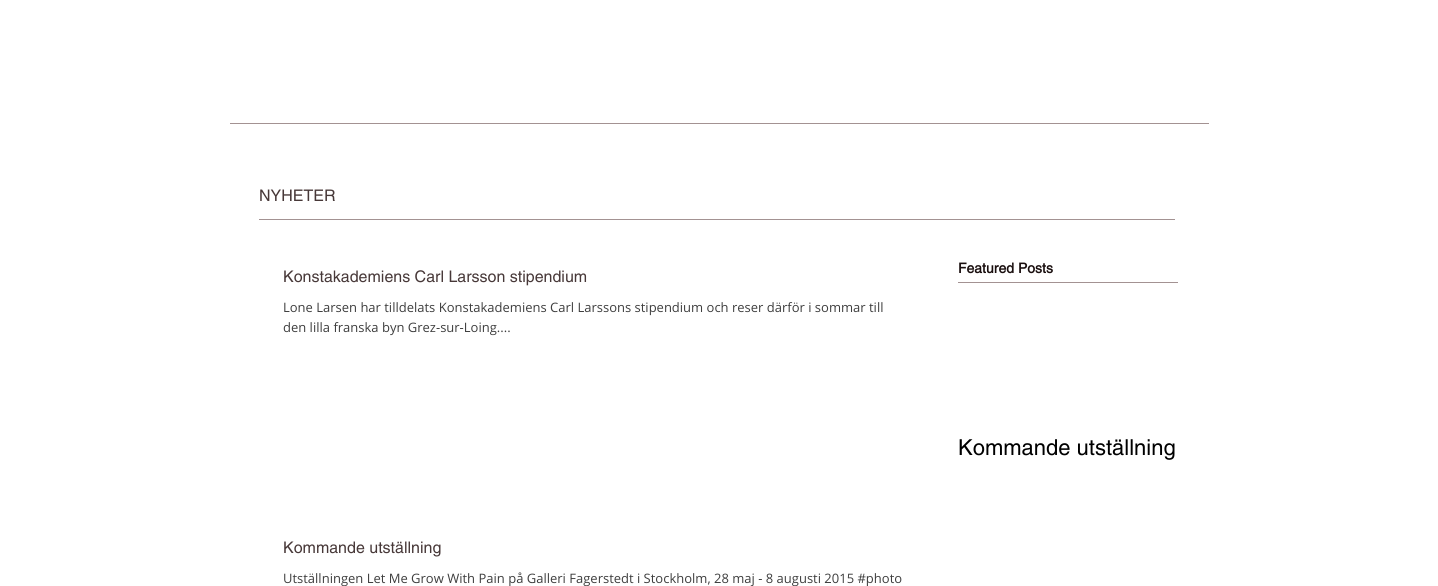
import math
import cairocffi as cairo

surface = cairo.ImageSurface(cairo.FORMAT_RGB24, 1438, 586)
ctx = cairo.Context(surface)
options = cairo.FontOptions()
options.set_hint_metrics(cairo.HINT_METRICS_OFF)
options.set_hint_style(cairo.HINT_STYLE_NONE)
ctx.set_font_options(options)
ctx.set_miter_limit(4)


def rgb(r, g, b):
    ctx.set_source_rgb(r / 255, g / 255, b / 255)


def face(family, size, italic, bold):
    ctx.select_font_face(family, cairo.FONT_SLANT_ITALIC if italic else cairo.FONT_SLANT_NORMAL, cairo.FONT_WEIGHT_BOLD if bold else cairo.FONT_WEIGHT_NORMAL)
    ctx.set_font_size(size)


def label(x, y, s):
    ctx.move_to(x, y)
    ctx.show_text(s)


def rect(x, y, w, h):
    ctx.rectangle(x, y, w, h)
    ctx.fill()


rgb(255, 255, 255)
ctx.paint()
rgb(163, 146, 146)
rect(230, 123, 979, 1)
face('helvetica', 16, 0, 0)
rgb(71, 56, 56)
label(259, 201, 'NYHETER')
rgb(163, 146, 146)
rect(259, 219, 916, 1)
face('helvetica', 14, 0, 1)
rgb(25, 14, 14)
label(958, 273, 'Featured Posts')
face('helvetica', 16, 0, 0)
rgb(71, 56, 56)
label(283, 282, 'Konstakademiens Carl Larsson stipendium')
face('Open Sans', 13, 0, 0)
rgb(62, 62, 62)
label(283, 312, 'Lone Larsen har tilldelats Konstakademiens Carl Larssons stipendium och reser därför i sommar till')
label(283, 332, 'den lilla franska byn Grez-sur-Loing....')
face('helvetica', 16, 0, 0)
rgb(71, 56, 56)
label(283, 553, 'Kommande utställning')
face('Open Sans', 13, 0, 0)
rgb(62, 62, 62)
label(283, 583, 'Utställningen Let Me Grow With Pain på Galleri Fagerstedt i Stockholm, 28 maj - 8 augusti 2015 #photo')
rgb(163, 146, 146)
rect(958, 282, 220, 1)
face('helvetica', 22, 0, 0)
rgb(0, 0, 0)
label(958, 455, 'Kommande utställning')
surface.write_to_png('render.png')
